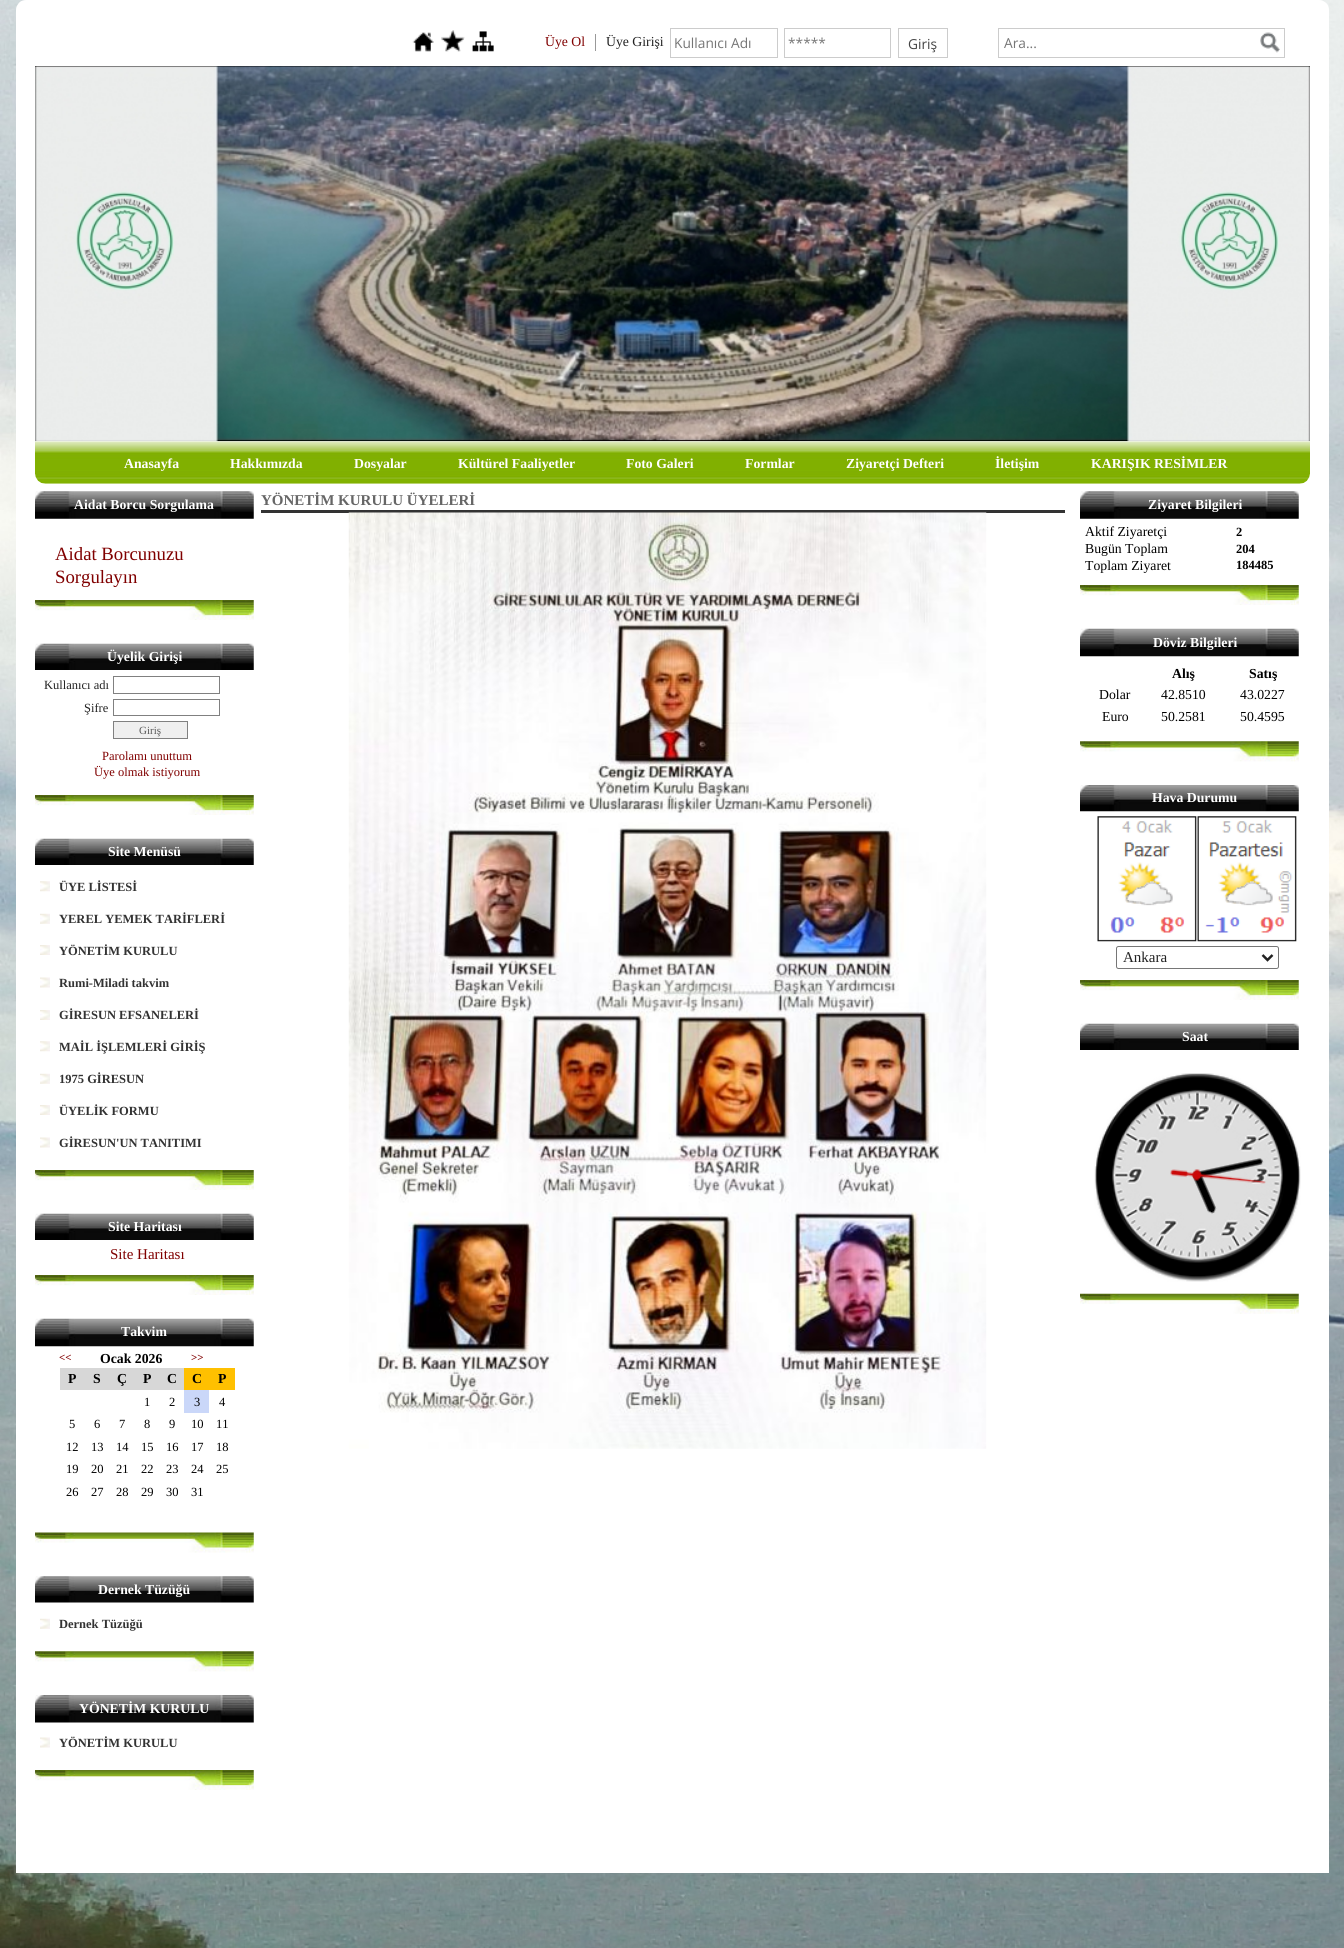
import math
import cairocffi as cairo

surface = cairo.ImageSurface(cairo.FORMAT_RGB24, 1344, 1948)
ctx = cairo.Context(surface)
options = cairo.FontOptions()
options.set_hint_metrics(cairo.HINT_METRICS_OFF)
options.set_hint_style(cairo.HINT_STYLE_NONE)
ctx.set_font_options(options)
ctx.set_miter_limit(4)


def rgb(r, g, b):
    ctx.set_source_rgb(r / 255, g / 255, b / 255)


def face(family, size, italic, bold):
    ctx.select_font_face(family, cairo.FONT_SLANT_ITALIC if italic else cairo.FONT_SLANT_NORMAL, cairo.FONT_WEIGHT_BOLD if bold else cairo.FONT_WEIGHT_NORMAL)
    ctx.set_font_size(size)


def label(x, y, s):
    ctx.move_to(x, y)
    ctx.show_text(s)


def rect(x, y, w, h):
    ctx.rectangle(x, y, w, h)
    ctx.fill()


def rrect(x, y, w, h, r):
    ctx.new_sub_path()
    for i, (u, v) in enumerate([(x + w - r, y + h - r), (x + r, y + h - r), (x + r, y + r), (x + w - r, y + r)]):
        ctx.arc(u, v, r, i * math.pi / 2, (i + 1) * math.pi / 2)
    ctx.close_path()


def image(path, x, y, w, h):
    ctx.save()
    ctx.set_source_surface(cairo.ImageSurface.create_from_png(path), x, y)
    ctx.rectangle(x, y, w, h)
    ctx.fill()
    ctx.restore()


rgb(255, 255, 255)
ctx.paint()
image('image0.png', 0, 0, 1344, 1948)
rgb(255, 255, 255)
ctx.new_path()
ctx.move_to(26, 9.5)
ctx.line_to(1319, 9.5)
ctx.curve_to(1319.5, 9.5, 1319.5, 9.5, 1319.5, 10)
ctx.line_to(1319.5, 1825.5)
ctx.line_to(25.5, 1825.5)
ctx.line_to(25.5, 10)
ctx.curve_to(25.5, 9.5, 25.5, 9.5, 26, 9.5)
ctx.close_path()
ctx.fill_preserve()
ctx.set_line_width(19)
ctx.stroke()
image('image1.png', 412, 32, 22, 20)
image('image2.png', 441, 30, 24, 22)
image('image3.png', 472, 31, 22, 21)
rgb(153, 153, 153)
rect(595, 34, 1, 17)
face('Liberation Serif', 13.75, 0, 0)
rgb(128, 0, 0)
label(545, 46, 'Üye Ol')
rgb(34, 34, 34)
label(606, 46, 'Üye Girişi')
ctx.rectangle(670.5, 28.5, 107, 29)
rgb(204, 204, 204)
ctx.set_line_width(1)
ctx.stroke()
face('Open Sans', 13.75, 0, 0)
rgb(117, 117, 117)
label(674, 48, 'Kullanıcı Adı')
ctx.rectangle(784.5, 28.5, 106, 29)
rgb(204, 204, 204)
ctx.stroke()
rgb(117, 117, 117)
label(788, 48, '*****')
ctx.rectangle(898.5, 28.5, 49, 29)
rgb(204, 204, 204)
ctx.stroke()
rgb(68, 68, 68)
label(908, 49, 'Giriş')
ctx.rectangle(998.5, 28.5, 286, 29)
rgb(204, 204, 204)
ctx.stroke()
rgb(117, 117, 117)
label(1004, 48, 'Ara...')
image('image4.png', 1260, 32, 20, 21)
rgb(0, 0, 0)
rect(35, 66, 1275, 1)
image('image6.png', 35, 441, 1275, 43)
image('image5.png', 35, 66, 1275, 376)
face('Liberation Serif', 13.75, 0, 1)
rgb(255, 255, 255)
label(124, 468, 'Anasayfa')
label(230, 468, 'Hakkımızda')
label(354, 468, 'Dosyalar')
label(458, 468, 'Kültürel Faaliyetler')
label(626, 468, 'Foto Galeri')
label(745, 468, 'Formlar')
label(846, 468, 'Ziyaretçi Defteri')
label(995, 468, 'İletişim')
label(1091, 468, 'KARIŞIK RESİMLER')
image('image7.png', 35, 491, 219, 28)
label(74, 509, 'Aidat Borcu Sorgulama')
face('Liberation Serif', 18.75, 0, 0)
rgb(128, 0, 0)
label(55, 560, 'Aidat Borcunuzu')
label(55, 583, 'Sorgulayın')
image('image8.png', 35, 600, 219, 20)
image('image9.png', 35, 643, 219, 27)
face('Liberation Serif', 13.75, 0, 1)
rgb(255, 255, 255)
label(107, 661, 'Üyelik Girişi')
face('Liberation Serif', 12.5, 0, 0)
rgb(34, 34, 34)
label(44, 689, 'Kullanıcı adı')
ctx.rectangle(113.5, 676.5, 106, 17)
rgb(128, 128, 128)
ctx.stroke()
rgb(34, 34, 34)
label(84, 712, 'Şifre')
ctx.rectangle(113.5, 699.5, 106, 16)
rgb(128, 128, 128)
ctx.stroke()
rgb(239, 239, 239)
ctx.rectangle(113.5, 721.5, 74, 17)
ctx.fill_preserve()
rgb(128, 128, 128)
ctx.stroke()
face('Liberation Serif', 11, 0, 0)
rgb(88, 88, 88)
label(139, 734, 'Giriş')
face('Liberation Serif', 12.5, 0, 0)
rgb(128, 0, 0)
label(102, 760, 'Parolamı unuttum')
label(94, 776, 'Üye olmak istiyorum')
image('image8.png', 35, 795, 219, 20)
image('image9.png', 35, 838, 219, 27)
face('Liberation Serif', 13.75, 0, 1)
rgb(255, 255, 255)
label(108, 856, 'Site Menüsü')
image('image10.png', 40, 881, 10, 11)
face('Liberation Serif', 12.5, 0, 1)
rgb(51, 51, 51)
label(59, 891, 'ÜYE LİSTESİ')
image('image11.png', 40, 913, 10, 11)
label(59, 923, 'YEREL YEMEK TARİFLERİ')
image('image12.png', 40, 945, 10, 10)
label(59, 955, 'YÖNETİM KURULU')
image('image13.png', 40, 977, 10, 11)
label(59, 987, 'Rumi-Miladi takvim')
image('image12.png', 40, 1010, 10, 10)
label(59, 1019, 'GİRESUN EFSANELERİ')
image('image10.png', 40, 1041, 10, 11)
label(59, 1051, 'MAİL İŞLEMLERİ GİRİŞ')
image('image11.png', 40, 1073, 10, 11)
label(59, 1083, '1975 GİRESUN')
image('image12.png', 40, 1105, 10, 10)
label(59, 1115, 'ÜYELİK FORMU')
image('image13.png', 40, 1137, 10, 11)
label(59, 1147, 'GİRESUN\'UN TANITIMI')
image('image14.png', 35, 1170, 219, 20)
image('image9.png', 35, 1213, 219, 27)
face('Liberation Serif', 13.75, 0, 1)
rgb(255, 255, 255)
label(108, 1231, 'Site Haritası')
face('Liberation Serif', 15, 0, 0)
rgb(128, 0, 0)
label(110, 1259, 'Site Haritası')
image('image8.png', 35, 1275, 219, 20)
image('image15.png', 35, 1318, 219, 29)
face('Liberation Serif', 13.75, 0, 1)
rgb(255, 255, 255)
label(121, 1336, 'Takvim')
face('Liberation Serif', 11, 0, 1)
rgb(128, 0, 0)
label(59, 1361, '<<')
face('Liberation Serif', 13.75, 0, 1)
rgb(0, 0, 0)
label(100, 1363, 'Ocak 2026')
face('Liberation Serif', 11, 0, 1)
rgb(128, 0, 0)
label(191, 1361, '>>')
rgb(215, 215, 215)
rect(60, 1368, 124, 22)
face('Liberation Serif', 13.75, 0, 1)
rgb(0, 0, 0)
label(68, 1383, 'P')
label(93, 1383, 'S')
label(117, 1383, 'Ç')
label(143, 1383, 'P')
label(167, 1383, 'C')
rgb(255, 192, 0)
rect(184, 1368, 51, 22)
rgb(0, 0, 0)
label(192, 1383, 'C')
label(218, 1383, 'P')
face('Liberation Serif', 12.5, 0, 0)
label(144, 1406, '1')
label(169, 1406, '2')
rgb(202, 215, 249)
rect(184, 1390, 25, 23)
rgb(0, 0, 0)
label(194, 1406, '3')
label(219, 1406, '4')
label(69, 1428, '5')
label(94, 1428, '6')
label(119, 1428, '7')
label(144, 1428, '8')
label(169, 1428, '9')
label(191, 1428, '10')
label(216, 1428, '11')
label(66, 1451, '12')
label(91, 1451, '13')
label(116, 1451, '14')
label(141, 1451, '15')
label(166, 1451, '16')
label(191, 1451, '17')
label(216, 1451, '18')
label(66, 1473, '19')
label(91, 1473, '20')
label(116, 1473, '21')
label(141, 1473, '22')
label(166, 1473, '23')
label(191, 1473, '24')
label(216, 1473, '25')
label(66, 1496, '26')
label(91, 1496, '27')
label(116, 1496, '28')
label(141, 1496, '29')
label(166, 1496, '30')
label(191, 1496, '31')
image('image16.png', 35, 1532, 219, 21)
image('image17.png', 35, 1576, 219, 27)
face('Liberation Serif', 13.75, 0, 1)
rgb(255, 255, 255)
label(98, 1594, 'Dernek Tüzüğü')
image('image11.png', 40, 1618, 10, 11)
face('Liberation Serif', 12.5, 0, 1)
rgb(51, 51, 51)
label(59, 1628, 'Dernek Tüzüğü')
image('image18.png', 35, 1651, 219, 21)
image('image19.png', 35, 1695, 219, 28)
face('Liberation Serif', 13.75, 0, 1)
rgb(255, 255, 255)
label(79, 1713, 'YÖNETİM KURULU')
image('image13.png', 40, 1737, 10, 11)
face('Liberation Serif', 12.5, 0, 1)
rgb(51, 51, 51)
label(59, 1747, 'YÖNETİM KURULU')
image('image8.png', 35, 1770, 219, 20)
rect(261, 510, 804, 3)
face('Liberation Serif', 15, 0, 1)
rgb(102, 102, 102)
label(261, 505, 'YÖNETİM KURULU ÜYELERİ')
image('image20.png', 348, 512, 639, 937)
image('image21.png', 1080, 491, 219, 28)
face('Liberation Serif', 13.75, 0, 1)
rgb(255, 255, 255)
label(1148, 509, 'Ziyaret Bilgileri')
face('Liberation Serif', 13.75, 0, 0)
rgb(0, 0, 0)
label(1085, 536, 'Aktif Ziyaretçi')
face('Liberation Serif', 12.5, 0, 1)
label(1236, 536, '2')
face('Liberation Serif', 13.75, 0, 0)
label(1085, 553, 'Bugün Toplam')
face('Liberation Serif', 12.5, 0, 1)
label(1236, 553, '204')
face('Liberation Serif', 13.75, 0, 0)
label(1085, 570, 'Toplam Ziyaret')
face('Liberation Serif', 12.5, 0, 1)
label(1236, 569, '184485')
image('image22.png', 1080, 585, 219, 20)
image('image23.png', 1080, 628, 219, 29)
face('Liberation Serif', 13.75, 0, 1)
rgb(255, 255, 255)
label(1153, 647, 'Döviz Bilgileri')
rgb(0, 0, 0)
label(1172, 678, 'Alış')
label(1249, 678, 'Satış')
face('Liberation Serif', 13.75, 0, 0)
label(1099, 699, 'Dolar')
label(1161, 699, '42.8510')
label(1240, 699, '43.0227')
label(1102, 721, 'Euro')
label(1161, 721, '50.2581')
label(1240, 721, '50.4595')
image('image24.png', 1080, 741, 219, 21)
image('image25.png', 1080, 785, 219, 27)
face('Liberation Serif', 13.75, 0, 1)
rgb(255, 255, 255)
label(1152, 802, 'Hava Durumu')
image('image26.png', 1097, 816, 200, 126)
rrect(1116.5, 946.5, 162, 22, 2)
rgb(118, 118, 118)
ctx.stroke()
ctx.new_path()
ctx.move_to(1262.5, 955)
ctx.line_to(1267.5, 960)
ctx.line_to(1272.5, 955)
rgb(34, 34, 34)
ctx.set_line_width(2.5)
ctx.stroke()
face('Liberation Serif', 15, 0, 0)
label(1123, 962, 'Ankara')
image('image27.png', 1080, 980, 219, 20)
image('image28.png', 1080, 1023, 219, 27)
face('Liberation Serif', 13.75, 0, 1)
rgb(255, 255, 255)
label(1182, 1041, 'Saat')
image('image29.png', 1094, 1073, 207, 209)
image('image32.png', 1192, 1170, 25, 44)
image('image30.png', 1194, 1158, 70, 20)
image('image31.png', 1170, 1169, 96, 15)
image('image33.png', 1080, 1293, 219, 21)
rect(16, 1835, 1313, 38)
surface.write_to_png('render.png')
